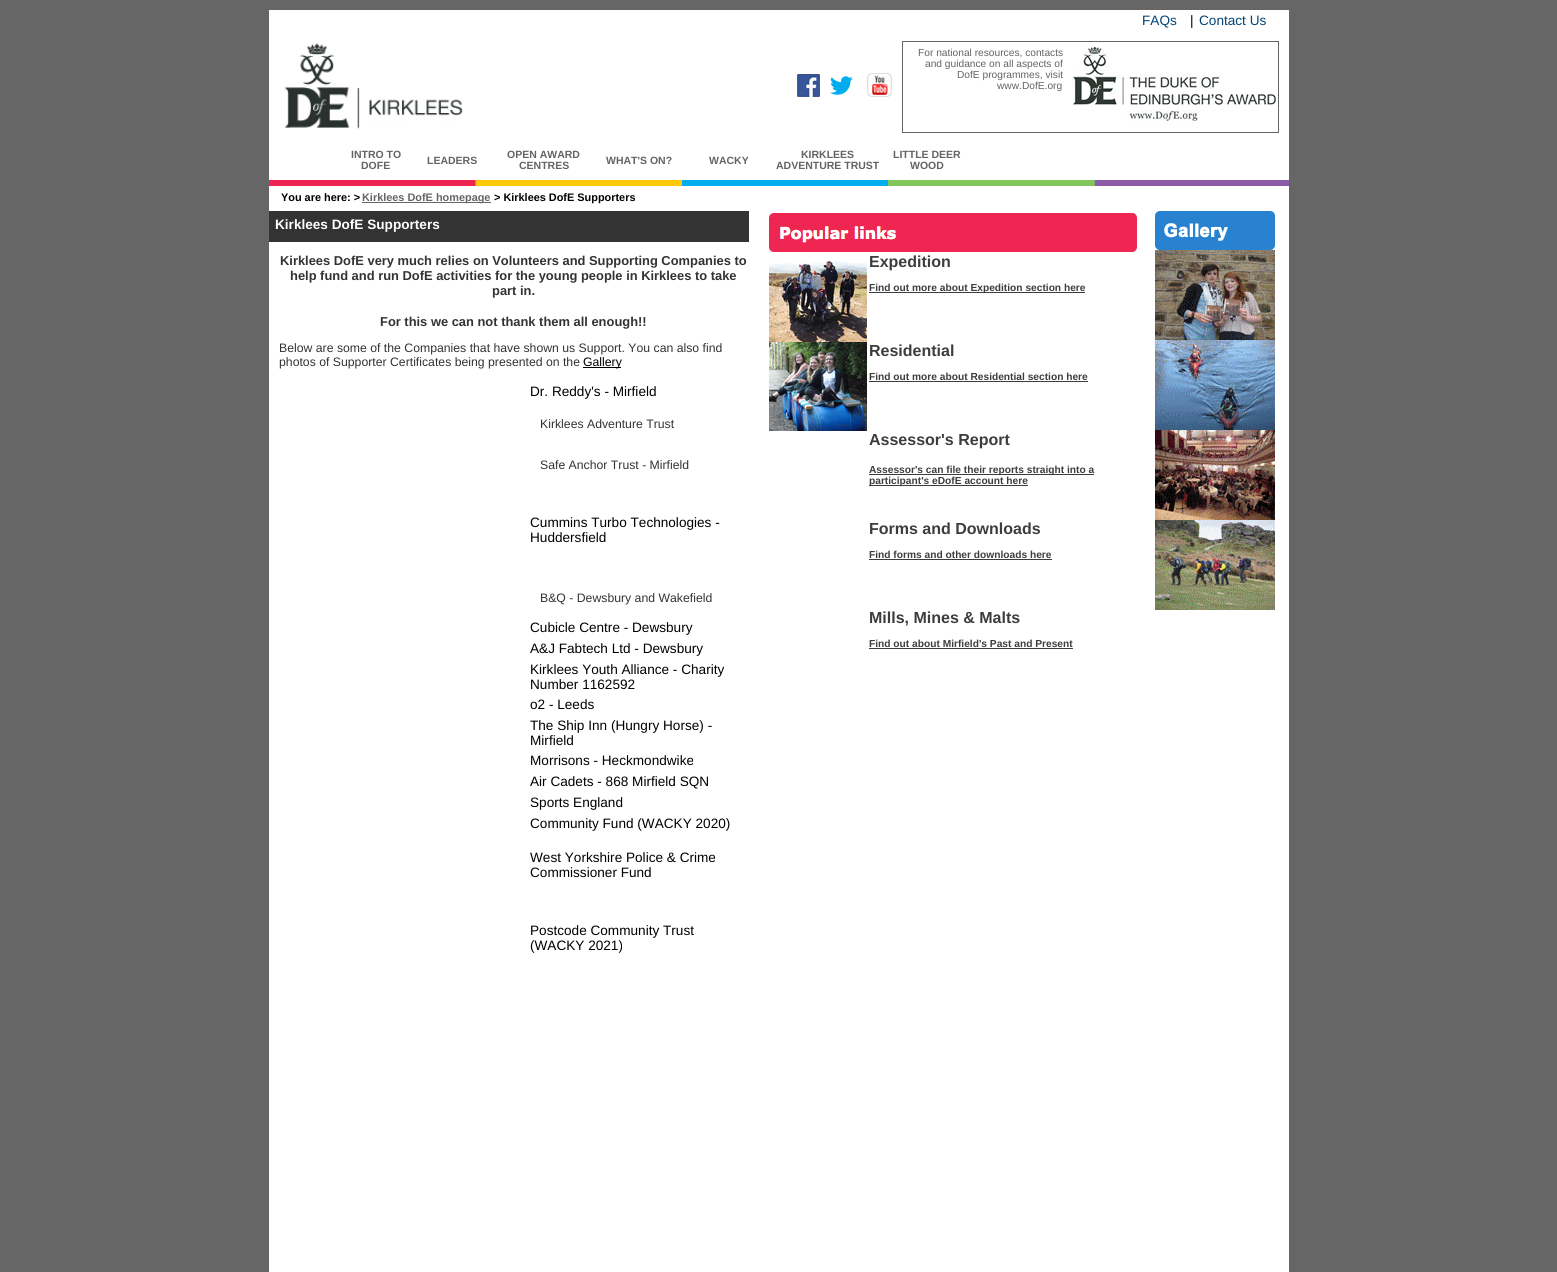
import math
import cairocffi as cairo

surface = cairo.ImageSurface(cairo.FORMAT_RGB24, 1557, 1272)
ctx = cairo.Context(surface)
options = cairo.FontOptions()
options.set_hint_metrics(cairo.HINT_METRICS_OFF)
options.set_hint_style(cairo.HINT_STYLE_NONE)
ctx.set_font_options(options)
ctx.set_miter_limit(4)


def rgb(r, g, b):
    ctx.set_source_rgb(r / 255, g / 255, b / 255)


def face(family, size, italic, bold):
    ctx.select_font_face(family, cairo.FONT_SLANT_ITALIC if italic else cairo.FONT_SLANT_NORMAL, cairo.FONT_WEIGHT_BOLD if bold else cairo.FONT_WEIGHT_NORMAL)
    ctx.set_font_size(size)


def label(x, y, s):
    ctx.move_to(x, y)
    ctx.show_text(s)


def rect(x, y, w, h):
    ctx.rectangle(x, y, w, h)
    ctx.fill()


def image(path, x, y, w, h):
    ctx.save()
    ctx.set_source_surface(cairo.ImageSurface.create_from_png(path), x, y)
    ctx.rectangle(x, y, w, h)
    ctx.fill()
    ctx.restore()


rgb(102, 102, 102)
ctx.paint()
rgb(255, 255, 255)
rect(269, 10, 1020, 1262)
face('Liberation Sans', 13.6, 0, 0)
rgb(1, 68, 119)
label(1142, 25, 'FAQs')
rgb(0, 0, 0)
label(1190, 25, '|')
rgb(1, 68, 119)
label(1199, 25, 'Contact Us')
image('image0.png', 284, 43, 179, 86)
image('image1.png', 797, 74, 23, 23)
image('image2.png', 830, 76, 23, 19)
image('image3.png', 867, 73, 25, 24)
ctx.rectangle(902.5, 41.5, 376, 91)
rgb(99, 100, 102)
ctx.set_line_width(1)
ctx.stroke()
face('Liberation Sans', 10.2, 0, 0)
label(918, 56, 'For national resources, contacts')
label(925, 67, 'and guidance on all aspects of')
label(957, 78, 'DofE programmes, visit')
label(997, 89, 'www.DofE.org')
image('image4.png', 1073, 47, 205, 75)
face('Liberation Sans', 10.5, 0, 1)
label(351, 158, 'INTRO TO')
label(361, 169, 'DOFE')
label(427, 164, 'LEADERS')
label(507, 158, 'OPEN AWARD')
label(519, 169, 'CENTRES')
label(606, 164, 'WHAT\'S ON?')
label(709, 164, 'WACKY')
label(801, 158, 'KIRKLEES')
label(776, 169, 'ADVENTURE TRUST')
label(893, 158, 'LITTLE DEER')
label(910, 169, 'WOOD')
image('image5.png', 269, 180, 1020, 6)
face('Liberation Sans', 10.9, 0, 1)
rgb(0, 0, 0)
label(281, 201, 'You are here: >')
rgb(102, 102, 102)
rect(362, 202, 129, 1)
rgb(99, 100, 102)
label(362, 201, 'Kirklees DofE homepage')
rgb(0, 0, 0)
label(494, 201, '> Kirklees DofE Supporters')
rgb(51, 51, 51)
rect(269, 211, 480, 31)
face('Liberation Sans', 13.6, 0, 1)
rgb(255, 255, 255)
label(275, 229, 'Kirklees DofE Supporters')
face('Liberation Sans', 12.9, 0, 1)
rgb(51, 51, 51)
label(280, 265, 'Kirklees DofE very much relies on Volunteers and Supporting Companies to')
label(290, 280, 'help fund and run DofE activities for the young people in Kirklees to take')
label(492, 295, 'part in.')
label(380, 326, 'For this we can not thank them all enough!!')
face('Liberation Sans', 12.25, 0, 0)
label(279, 352, 'Below are some of the Companies that have shown us Support. You can also find')
label(279, 366, 'photos of Supporter Certificates being presented on the')
rgb(0, 0, 0)
rect(583, 367, 38, 1)
label(583, 366, 'Gallery')
face('Liberation Sans', 13.6, 0, 0)
label(530, 396, 'Dr. Reddy\'s - Mirfield')
face('Liberation Sans', 12.25, 0, 0)
rgb(51, 51, 51)
label(540, 428, 'Kirklees Adventure Trust')
label(540, 469, 'Safe Anchor Trust - Mirfield')
face('Liberation Sans', 13.6, 0, 0)
rgb(0, 0, 0)
label(530, 527, 'Cummins Turbo Technologies -')
label(530, 542, 'Huddersfield')
face('Liberation Sans', 12.25, 0, 0)
rgb(51, 51, 51)
label(540, 602, 'B&Q - Dewsbury and Wakefield')
face('Liberation Sans', 13.6, 0, 0)
rgb(0, 0, 0)
label(530, 632, 'Cubicle Centre - Dewsbury')
label(530, 653, 'A&J Fabtech Ltd - Dewsbury')
label(530, 674, 'Kirklees Youth Alliance - Charity')
label(530, 689, 'Number 1162592')
label(530, 709, 'o2 - Leeds')
label(530, 730, 'The Ship Inn (Hungry Horse) -')
label(530, 745, 'Mirfield')
label(530, 765, 'Morrisons - Heckmondwike')
label(530, 786, 'Air Cadets - 868 Mirfield SQN')
label(530, 807, 'Sports England')
label(530, 828, 'Community Fund (WACKY 2020)')
label(530, 862, 'West Yorkshire Police & Crime')
label(530, 877, 'Commissioner Fund')
label(530, 935, 'Postcode Community Trust')
label(530, 950, '(WACKY 2021)')
image('image6.png', 769, 213, 368, 39)
image('image7.png', 769, 260, 98, 82)
face('Liberation Sans', 16, 0, 1)
rgb(61, 61, 61)
label(869, 267, 'Expedition')
rect(869, 292, 216, 1)
face('Liberation Sans', 10.2, 0, 1)
label(869, 291, 'Find out more about Expedition section here')
image('image8.png', 769, 342, 98, 89)
face('Liberation Sans', 16, 0, 1)
label(869, 356, 'Residential')
face('Liberation Sans', 10.2, 0, 1)
label(869, 380, 'Find out more about Residential section here')
rect(869, 381, 219, 1)
face('Liberation Sans', 16, 0, 1)
label(869, 445, 'Assessor\'s Report')
rect(869, 474, 225, 1)
face('Liberation Sans', 10.2, 0, 1)
label(869, 473, 'Assessor\'s can file their reports straight into a')
rect(869, 485, 159, 1)
label(869, 484, 'participant\'s eDofE account here')
face('Liberation Sans', 16, 0, 1)
label(869, 534, 'Forms and Downloads')
face('Liberation Sans', 10.2, 0, 1)
label(869, 558, 'Find forms and other downloads here')
rect(869, 559, 183, 1)
face('Liberation Sans', 16, 0, 1)
label(869, 623, 'Mills, Mines & Malts')
face('Liberation Sans', 10.2, 0, 1)
label(869, 647, 'Find out about Mirfield\'s Past and Present')
rect(869, 648, 204, 1)
image('image9.png', 1155, 211, 120, 39)
image('image10.png', 1155, 250, 120, 90)
image('image11.png', 1155, 340, 120, 90)
image('image12.png', 1155, 430, 120, 90)
image('image13.png', 1155, 520, 120, 90)
surface.write_to_png('render.png')
